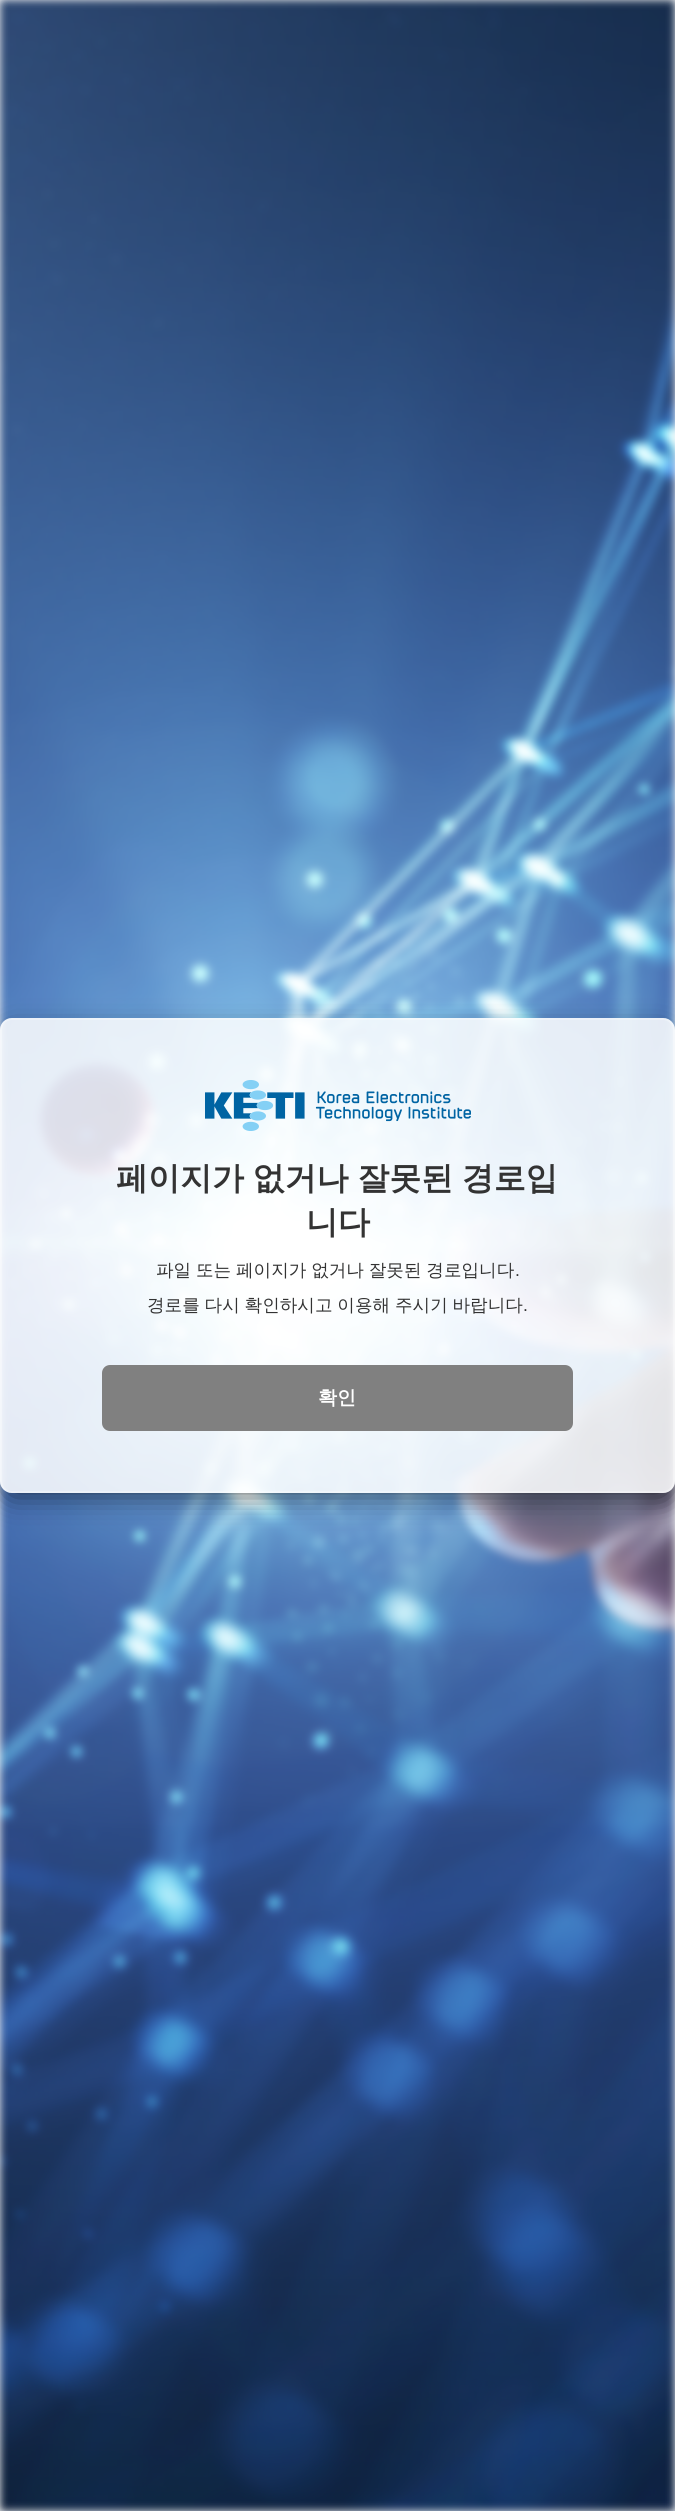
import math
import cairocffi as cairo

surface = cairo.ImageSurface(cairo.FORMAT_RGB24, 675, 2511)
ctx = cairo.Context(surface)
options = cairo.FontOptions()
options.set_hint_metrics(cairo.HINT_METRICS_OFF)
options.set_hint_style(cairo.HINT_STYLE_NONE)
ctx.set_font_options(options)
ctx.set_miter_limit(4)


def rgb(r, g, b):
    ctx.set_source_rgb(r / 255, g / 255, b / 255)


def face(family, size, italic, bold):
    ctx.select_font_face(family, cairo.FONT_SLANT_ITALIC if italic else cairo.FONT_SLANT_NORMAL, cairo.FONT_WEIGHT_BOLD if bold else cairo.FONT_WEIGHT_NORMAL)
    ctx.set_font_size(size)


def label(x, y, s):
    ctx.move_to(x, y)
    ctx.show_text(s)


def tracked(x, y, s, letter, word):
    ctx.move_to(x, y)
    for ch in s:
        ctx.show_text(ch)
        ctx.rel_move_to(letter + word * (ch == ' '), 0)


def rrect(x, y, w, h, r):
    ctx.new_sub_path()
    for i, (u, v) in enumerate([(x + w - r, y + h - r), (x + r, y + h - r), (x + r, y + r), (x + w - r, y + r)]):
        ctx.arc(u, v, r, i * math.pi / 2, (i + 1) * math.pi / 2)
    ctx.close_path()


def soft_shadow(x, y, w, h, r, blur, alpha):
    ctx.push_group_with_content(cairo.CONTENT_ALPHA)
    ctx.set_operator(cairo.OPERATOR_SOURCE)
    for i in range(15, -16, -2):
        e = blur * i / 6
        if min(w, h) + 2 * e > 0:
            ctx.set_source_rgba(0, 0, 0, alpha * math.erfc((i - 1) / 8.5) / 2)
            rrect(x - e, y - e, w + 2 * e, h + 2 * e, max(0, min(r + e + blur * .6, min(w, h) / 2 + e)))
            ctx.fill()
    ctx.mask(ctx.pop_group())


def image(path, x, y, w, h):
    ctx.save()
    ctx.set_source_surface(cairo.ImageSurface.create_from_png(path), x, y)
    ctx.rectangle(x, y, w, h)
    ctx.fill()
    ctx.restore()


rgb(244, 244, 244)
ctx.paint()
image('image0.png', 0, 0, 675, 2511)
ctx.save()
ctx.set_fill_rule(cairo.FILL_RULE_EVEN_ODD)
ctx.new_path()
ctx.move_to(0, 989)
ctx.line_to(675, 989)
ctx.line_to(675, 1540)
ctx.line_to(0, 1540)
ctx.close_path()
ctx.move_to(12, 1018)
ctx.line_to(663, 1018)
ctx.curve_to(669.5, 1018, 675, 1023.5, 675, 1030)
ctx.line_to(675, 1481)
ctx.curve_to(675, 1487.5, 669.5, 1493, 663, 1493)
ctx.line_to(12, 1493)
ctx.curve_to(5.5, 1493, 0, 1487.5, 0, 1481)
ctx.line_to(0, 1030)
ctx.curve_to(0, 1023.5, 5.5, 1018, 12, 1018)
ctx.close_path()
ctx.clip()
rgb(0, 0, 0)
soft_shadow(10, 1037, 655, 455, 2, 15.5, 0.72)
ctx.restore()
ctx.set_source_rgba(1, 1, 1, 0.85)
rrect(0, 1018, 675, 475, 12)
ctx.fill()
rrect(1, 1019, 673, 473, 11)
ctx.set_source_rgba(1, 1, 1, 0.3)
ctx.stroke()
image('image1.png', 205, 1080, 266, 51)
face('WenQuanYi Zen Hei', 32, 0, 1)
rgb(51, 51, 51)
tracked(116, 1189, '페이지가 없거나 잘못된 경로입', 0, -1)
label(306, 1233, '니다')
face('WenQuanYi Zen Hei Medium', 17.6, 0, 0)
tracked(156, 1276, '파일 또는 페이지가 없거나 잘못된 경로입니다', 0, -0.5)
face('Liberation Sans', 17.6, 0, 0)
label(515, 1276, '.')
face('WenQuanYi Zen Hei Medium', 17.6, 0, 0)
tracked(147, 1311, '경로를 다시 확인하시고 이용해 주시기 바랍니다', 0, -0.5)
face('Liberation Sans', 17.6, 0, 0)
label(523, 1311, '.')
rgb(128, 128, 128)
rrect(102, 1365, 471, 66, 8)
ctx.fill()
face('WenQuanYi Zen Hei', 19, 0, 1)
rgb(255, 255, 255)
label(318, 1404, '확인')
surface.write_to_png('render.png')
